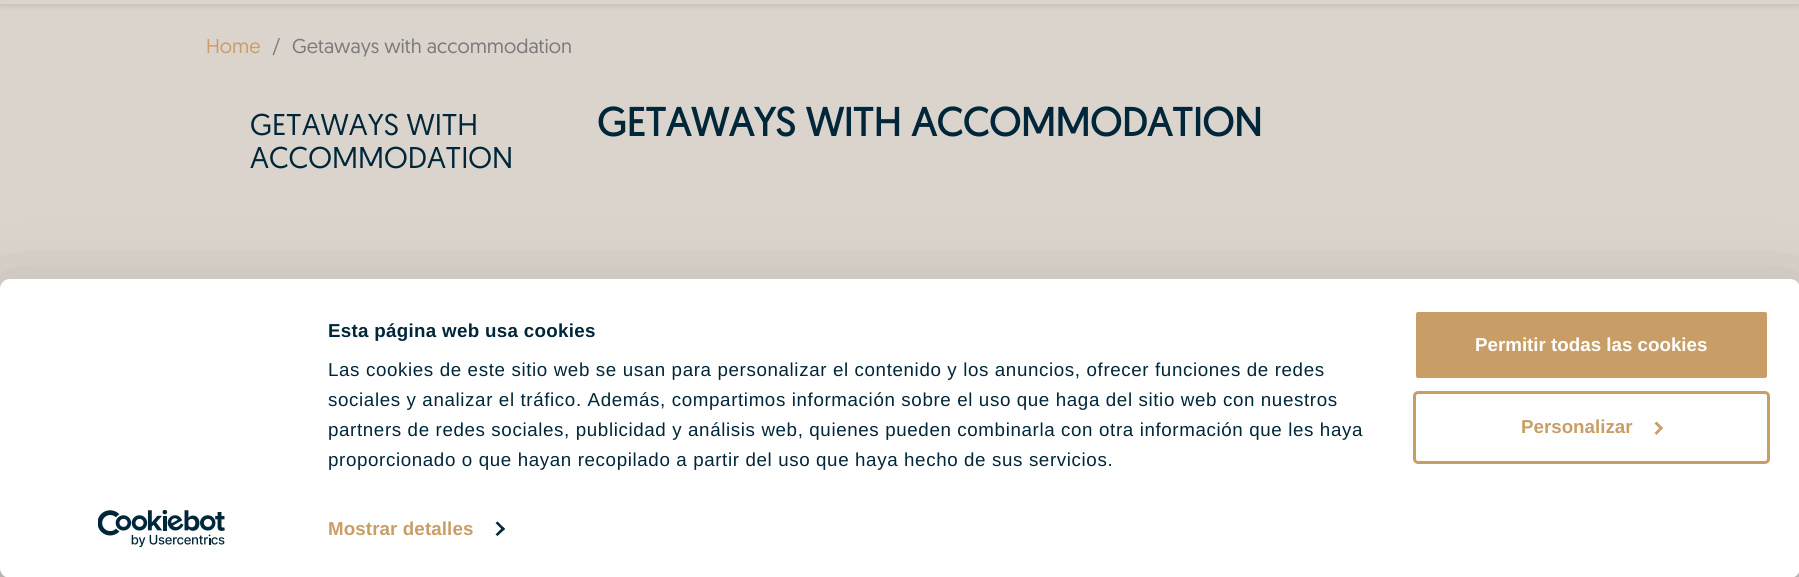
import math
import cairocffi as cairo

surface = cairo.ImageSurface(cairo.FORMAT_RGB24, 1799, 577)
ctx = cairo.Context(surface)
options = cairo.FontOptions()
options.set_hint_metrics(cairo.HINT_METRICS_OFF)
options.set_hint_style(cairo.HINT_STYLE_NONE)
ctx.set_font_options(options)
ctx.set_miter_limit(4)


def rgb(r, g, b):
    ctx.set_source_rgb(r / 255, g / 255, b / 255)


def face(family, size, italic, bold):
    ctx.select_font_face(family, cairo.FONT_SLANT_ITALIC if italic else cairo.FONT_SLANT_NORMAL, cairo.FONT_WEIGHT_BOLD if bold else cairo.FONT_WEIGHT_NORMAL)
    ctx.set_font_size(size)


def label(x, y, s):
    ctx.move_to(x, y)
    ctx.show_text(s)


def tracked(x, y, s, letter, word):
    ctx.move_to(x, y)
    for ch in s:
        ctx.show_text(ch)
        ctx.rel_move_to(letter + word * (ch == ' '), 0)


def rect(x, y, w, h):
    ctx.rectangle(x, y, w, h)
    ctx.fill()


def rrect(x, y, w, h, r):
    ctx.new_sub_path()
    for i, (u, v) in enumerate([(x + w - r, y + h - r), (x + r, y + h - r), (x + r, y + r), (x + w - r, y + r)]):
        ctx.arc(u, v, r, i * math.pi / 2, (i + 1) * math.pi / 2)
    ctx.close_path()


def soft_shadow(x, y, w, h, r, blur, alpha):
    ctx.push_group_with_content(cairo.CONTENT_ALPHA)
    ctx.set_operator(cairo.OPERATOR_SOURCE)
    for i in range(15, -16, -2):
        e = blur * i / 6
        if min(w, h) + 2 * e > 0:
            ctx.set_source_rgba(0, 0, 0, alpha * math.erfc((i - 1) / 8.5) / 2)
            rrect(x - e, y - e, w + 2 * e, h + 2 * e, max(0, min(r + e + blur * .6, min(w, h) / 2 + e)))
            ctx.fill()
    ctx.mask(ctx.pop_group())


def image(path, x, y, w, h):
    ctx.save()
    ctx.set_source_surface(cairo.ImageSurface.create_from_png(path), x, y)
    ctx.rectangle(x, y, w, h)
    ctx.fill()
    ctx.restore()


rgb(219, 212, 204)
ctx.paint()
rgb(0, 0, 0)
soft_shadow(0, -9, 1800, 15, 0, 3, 0.11)
rgb(219, 212, 204)
rect(0, 0, 1799, 4)
face('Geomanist', 20, 0, 0)
rgb(201, 158, 102)
label(206, 53, 'Home')
rgb(122, 122, 122)
label(272, 53, '/')
label(292, 53, 'Getaways with accommodation')
face('Geomanist', 30, 0, 0)
rgb(0, 38, 58)
label(250, 135, 'GETAWAYS WITH')
label(250, 168, 'ACCOMMODATION')
face('Geomanist', 40, 0, 1)
label(597, 136, 'GETAWAYS WITH ACCOMMODATION')
rgb(0, 0, 0)
soft_shadow(0, 316, 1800, 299, 10, 44, 0.3)
rgb(255, 255, 255)
rrect(0, 279, 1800, 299, 10)
ctx.fill()
face('Liberation Sans', 18.75, 0, 1)
rgb(0, 38, 58)
tracked(328, 337, 'Esta página web usa cookies', 0.3, 0)
face('Liberation Sans', 18.75, 0, 0)
tracked(328, 376, 'Las cookies de este sitio web se usan para personalizar el contenido y los anuncios, ofrecer funciones de redes', 0.62, 0)
tracked(328, 406, 'sociales y analizar el tráfico. Además, compartimos información sobre el uso que haga del sitio web con nuestros', 0.62, 0)
tracked(328, 436, 'partners de redes sociales, publicidad y análisis web, quienes pueden combinarla con otra información que les haya', 0.62, 0)
tracked(328, 466, 'proporcionado o que hayan recopilado a partir del uso que haya hecho de sus servicios.', 0.62, 0)
face('Liberation Sans', 18.75, 0, 1)
rgb(201, 158, 102)
tracked(328, 535, 'Mostrar detalles', 0.1, 0)
rgb(0, 38, 58)
ctx.new_path()
ctx.move_to(497.5, 521.5)
ctx.line_to(505, 529)
ctx.line_to(503, 530.5)
ctx.line_to(495.5, 523)
ctx.close_path()
ctx.fill()
ctx.new_path()
ctx.move_to(503, 527)
ctx.line_to(505, 529)
ctx.line_to(497.5, 536)
ctx.line_to(495.5, 534.5)
ctx.close_path()
ctx.fill()
rgb(201, 158, 102)
rrect(1414.5, 310.5, 354, 69, 3.5)
ctx.fill_preserve()
rgb(255, 255, 255)
ctx.set_line_width(3)
ctx.stroke()
label(1475, 351, 'Permitir todas las cookies')
rrect(1414.5, 392.5, 354, 70, 3.5)
rgb(201, 158, 102)
ctx.stroke()
label(1521, 433, 'Personalizar')
ctx.new_path()
ctx.move_to(1656.5, 421.5)
ctx.line_to(1663, 428)
ctx.line_to(1661, 430)
ctx.line_to(1654.5, 423.5)
ctx.close_path()
ctx.fill()
ctx.new_path()
ctx.move_to(1661, 426.5)
ctx.line_to(1663, 428)
ctx.line_to(1656.5, 435)
ctx.line_to(1654.5, 433)
ctx.close_path()
ctx.fill()
image('image0.png', 98, 510, 127, 38)
surface.write_to_png('render.png')
